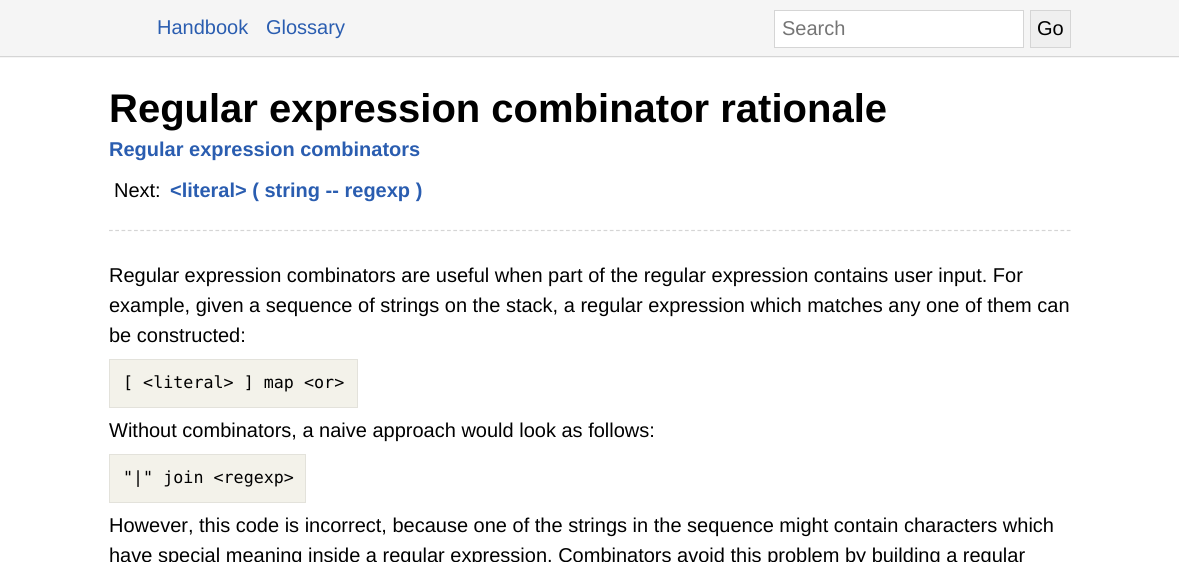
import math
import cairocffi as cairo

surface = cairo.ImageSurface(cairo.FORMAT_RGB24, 1179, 562)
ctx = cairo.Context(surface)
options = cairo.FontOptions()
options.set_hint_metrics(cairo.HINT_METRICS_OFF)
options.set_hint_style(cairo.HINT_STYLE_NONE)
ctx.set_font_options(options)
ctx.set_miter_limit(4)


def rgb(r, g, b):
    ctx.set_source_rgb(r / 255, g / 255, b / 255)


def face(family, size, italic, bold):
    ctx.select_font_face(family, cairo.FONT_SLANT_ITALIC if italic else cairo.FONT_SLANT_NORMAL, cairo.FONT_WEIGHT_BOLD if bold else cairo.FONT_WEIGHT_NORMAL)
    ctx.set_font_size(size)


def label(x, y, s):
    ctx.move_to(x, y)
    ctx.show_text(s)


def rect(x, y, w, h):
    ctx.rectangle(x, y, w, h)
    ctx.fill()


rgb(255, 255, 255)
ctx.paint()
rgb(245, 245, 245)
rect(0, 0, 1179, 58)
rgb(213, 213, 213)
rect(0, 56, 1179, 1)
face('Liberation Sans', 20, 0, 0)
rgb(42, 93, 176)
label(157, 34, 'Handbook')
label(266, 34, 'Glossary')
rgb(255, 255, 255)
ctx.rectangle(774.5, 10.5, 249, 37)
ctx.fill_preserve()
rgb(213, 213, 213)
ctx.set_line_width(1)
ctx.stroke()
rgb(117, 117, 117)
label(782, 35, 'Search')
rgb(239, 239, 239)
ctx.rectangle(1030.5, 10.5, 40, 37)
ctx.fill_preserve()
rgb(213, 213, 213)
ctx.stroke()
rgb(0, 0, 0)
label(1037, 35, 'Go')
ctx.new_path()
ctx.move_to(109, 230.5)
ctx.line_to(1071, 230.5)
rgb(213, 213, 213)
ctx.set_line_width(1.2)
ctx.set_dash([3.75, 2.51])
ctx.stroke()
face('Liberation Sans', 40, 0, 1)
rgb(0, 0, 0)
label(109, 122, 'Regular expression combinator rationale')
face('Liberation Sans', 20, 0, 1)
rgb(42, 93, 176)
label(109, 156, 'Regular expression combinators')
face('Liberation Sans', 20, 0, 0)
rgb(0, 0, 0)
label(114, 197, 'Next:')
face('Liberation Sans', 20, 0, 1)
rgb(42, 93, 176)
label(170, 197, '<literal> ( string -- regexp )')
face('Liberation Sans', 20, 0, 0)
rgb(0, 0, 0)
label(109, 282, 'Regular expression combinators are useful when part of the regular expression contains user input. For')
label(109, 312, 'example, given a sequence of strings on the stack, a regular expression which matches any one of them can')
label(109, 342, 'be constructed:')
rgb(243, 242, 234)
ctx.rectangle(109.5, 359.5, 248, 48)
ctx.fill_preserve()
rgb(227, 226, 219)
ctx.set_line_width(1)
ctx.set_dash([])
ctx.stroke()
face('DejaVu Sans Mono', 16.7, 0, 0)
rgb(0, 0, 0)
label(123, 388, '[ <literal> ] map <or>')
face('Liberation Sans', 20, 0, 0)
label(109, 437, 'Without combinators, a naive approach would look as follows:')
rgb(243, 242, 234)
ctx.rectangle(109.5, 454.5, 196, 48)
ctx.fill_preserve()
rgb(227, 226, 219)
ctx.stroke()
face('DejaVu Sans Mono', 16.7, 0, 0)
rgb(0, 0, 0)
label(123, 483, '"|" join <regexp>')
face('Liberation Sans', 20, 0, 0)
label(109, 532, 'However, this code is incorrect, because one of the strings in the sequence might contain characters which')
label(109, 562, 'have special meaning inside a regular expression. Combinators avoid this problem by building a regular')
surface.write_to_png('render.png')
